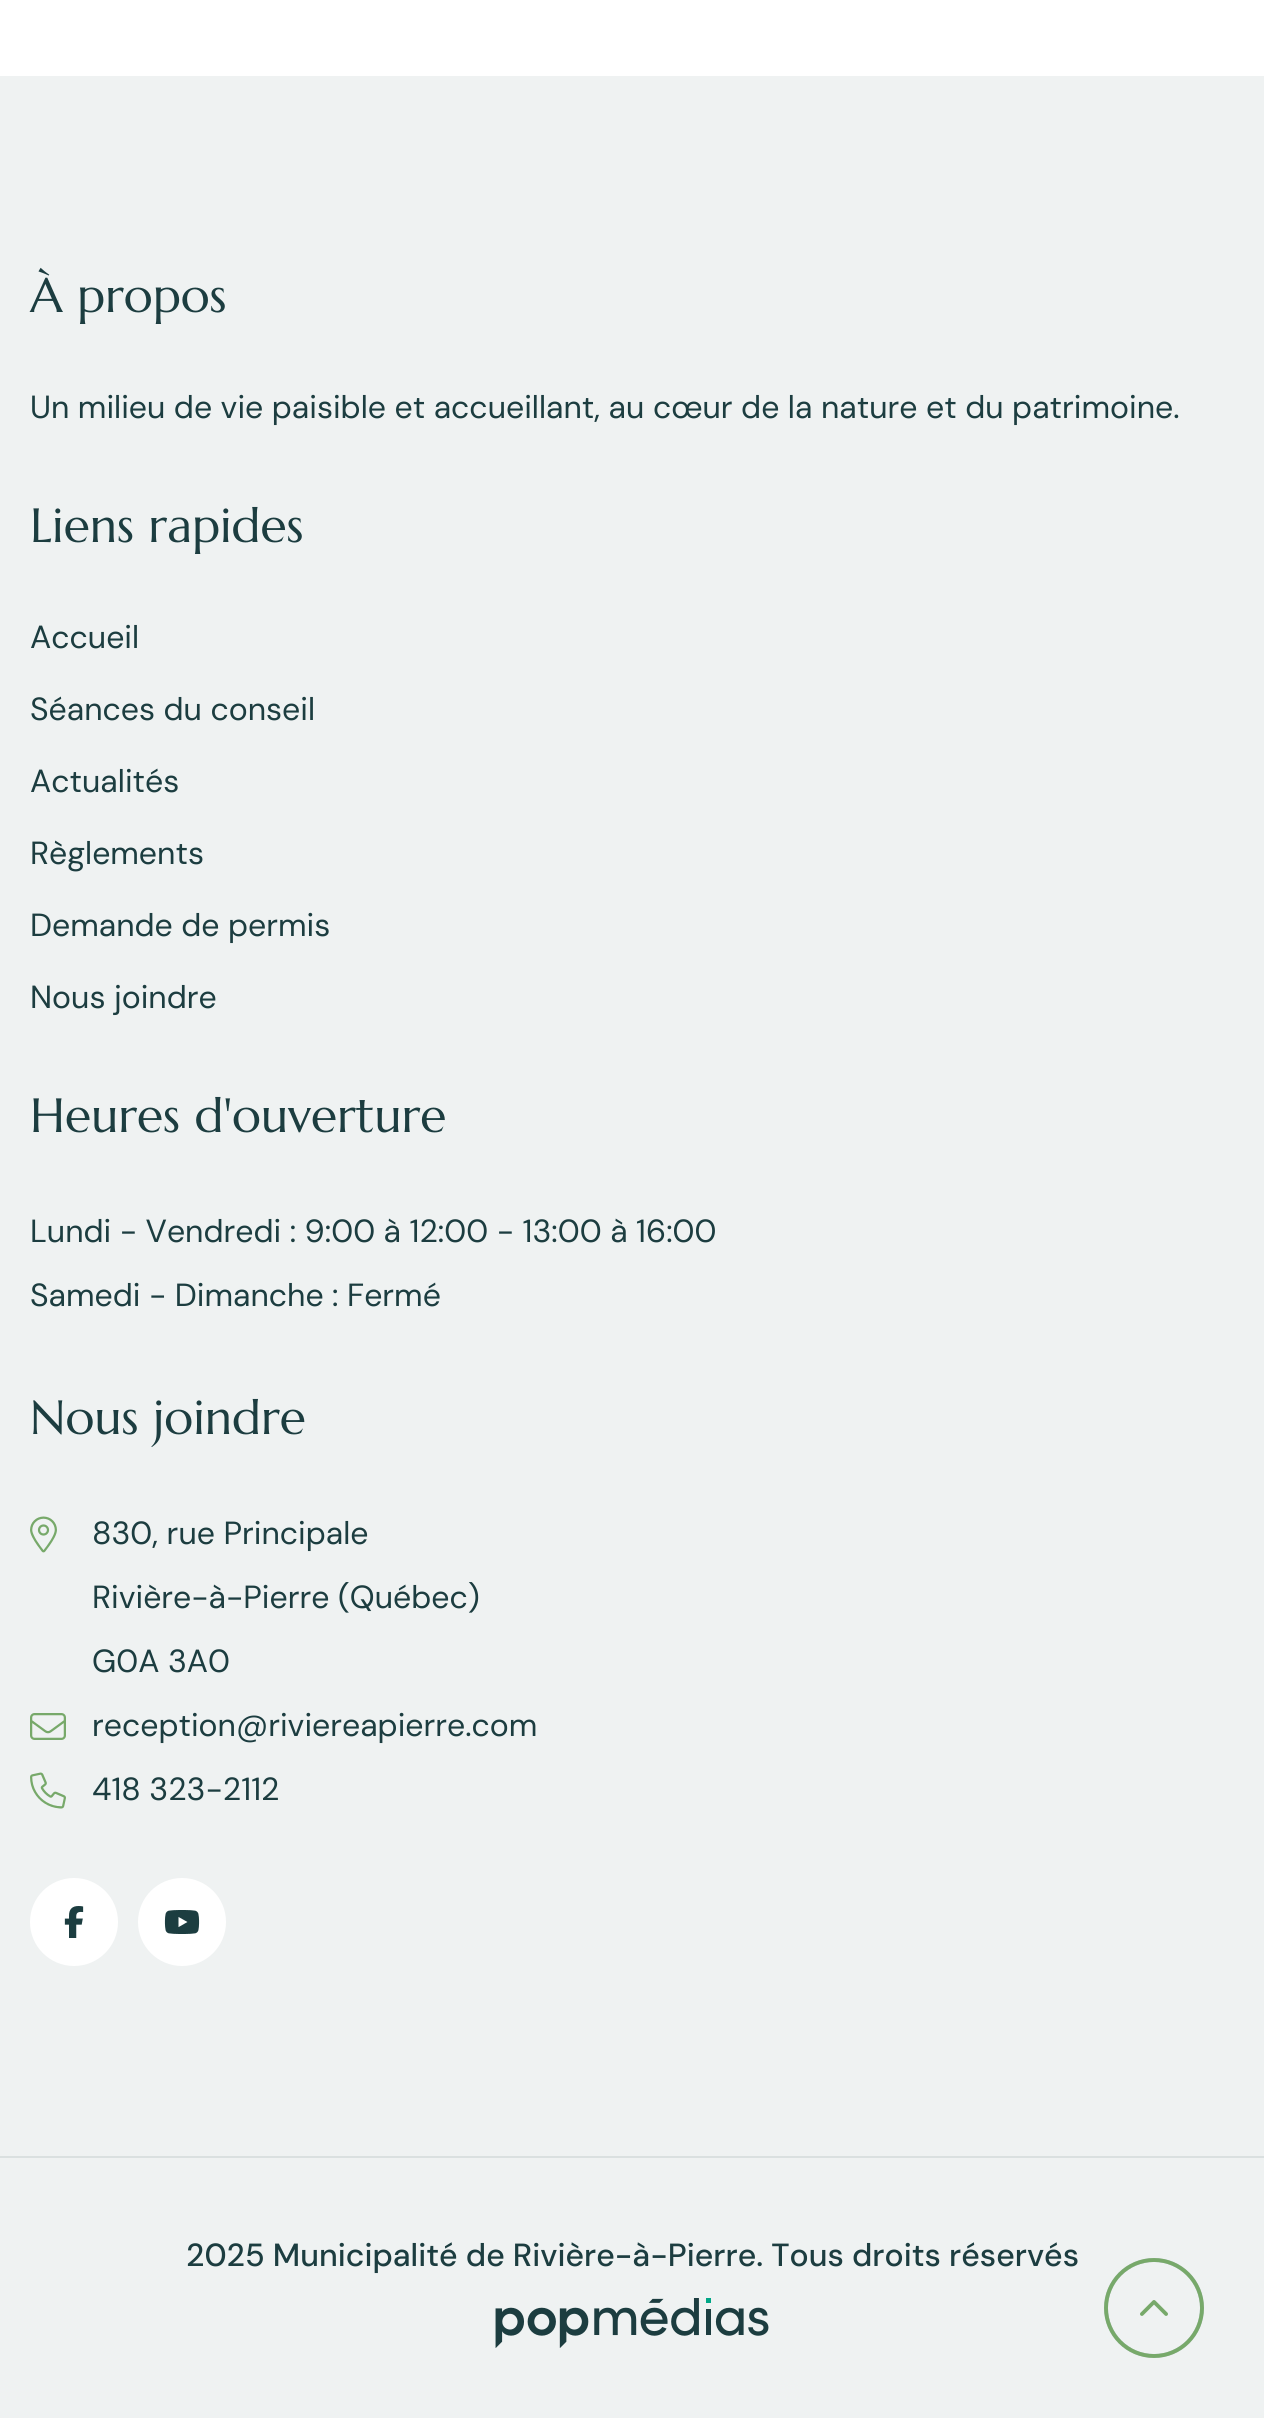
import math
import cairocffi as cairo

surface = cairo.ImageSurface(cairo.FORMAT_RGB24, 1264, 2418)
ctx = cairo.Context(surface)
options = cairo.FontOptions()
options.set_hint_metrics(cairo.HINT_METRICS_OFF)
options.set_hint_style(cairo.HINT_STYLE_NONE)
ctx.set_font_options(options)
ctx.set_miter_limit(4)


def rgb(r, g, b):
    ctx.set_source_rgb(r / 255, g / 255, b / 255)


def face(family, size, italic, bold):
    ctx.select_font_face(family, cairo.FONT_SLANT_ITALIC if italic else cairo.FONT_SLANT_NORMAL, cairo.FONT_WEIGHT_BOLD if bold else cairo.FONT_WEIGHT_NORMAL)
    ctx.set_font_size(size)


def label(x, y, s):
    ctx.move_to(x, y)
    ctx.show_text(s)


def rect(x, y, w, h):
    ctx.rectangle(x, y, w, h)
    ctx.fill()


def image(path, x, y, w, h):
    ctx.save()
    ctx.set_source_surface(cairo.ImageSurface.create_from_png(path), x, y)
    ctx.rectangle(x, y, w, h)
    ctx.fill()
    ctx.restore()


rgb(255, 255, 255)
ctx.paint()
rgb(239, 242, 242)
rect(0, 76, 1264, 2342)
face('Marcellus', 48, 0, 0)
rgb(28, 61, 64)
label(30, 312, 'À propos')
face('DM Sans', 32, 0, 0)
label(30, 418, 'Un milieu de vie paisible et accueillant, au cœur de la nature et du patrimoine.')
face('Marcellus', 48, 0, 0)
label(30, 542, 'Liens rapides')
face('DM Sans', 32, 0, 0)
label(30, 648, 'Accueil')
label(30, 720, 'Séances du conseil')
label(30, 792, 'Actualités')
label(30, 864, 'Règlements')
label(30, 936, 'Demande de permis')
label(30, 1008, 'Nous joindre')
face('Marcellus', 48, 0, 0)
label(30, 1132, 'Heures d\'ouverture')
face('DM Sans', 32, 0, 0)
label(30, 1242, 'Lundi - Vendredi : 9:00 à 12:00 - 13:00 à 16:00')
label(30, 1306, 'Samedi - Dimanche : Fermé')
face('Marcellus', 48, 0, 0)
label(30, 1434, 'Nous joindre')
image('image0.png', 30, 1516, 27, 37)
face('DM Sans', 32, 0, 0)
label(92, 1544, '830, rue Principale')
label(92, 1608, 'Rivière-à-Pierre (Québec)')
label(92, 1672, 'G0A 3A0')
image('image1.png', 30, 1713, 36, 27)
label(92, 1736, 'reception@riviereapierre.com')
image('image2.png', 30, 1772, 36, 37)
label(92, 1800, '418 323-2112')
rgb(255, 255, 255)
ctx.new_path()
ctx.arc(74, 1922, 44, 0, 2 * math.pi)
ctx.fill()
image('image3.png', 64, 1906, 20, 32)
ctx.arc(182, 1922, 44, 0, 2 * math.pi)
ctx.fill()
image('image4.png', 164, 1910, 36, 24)
rgb(218, 224, 224)
rect(0, 2156, 1264, 2)
face('DM Sans Medium', 32, 0, 0)
rgb(28, 61, 64)
label(186, 2266, '2025 Municipalité de Rivière-à-Pierre. Tous droits réservés')
image('image5.png', 495, 2298, 274, 50)
ctx.arc(1154, 2308, 48, 0, 2 * math.pi)
rgb(191, 203, 207)
ctx.set_line_width(4)
ctx.stroke()
ctx.new_path()
ctx.move_to(1154, 2260)
ctx.curve_to(1180.5, 2260, 1202, 2281.5, 1202, 2308)
ctx.curve_to(1202, 2334.5, 1180.5, 2356, 1154, 2356)
ctx.curve_to(1127.5, 2356, 1106, 2334.5, 1106, 2308)
ctx.curve_to(1106, 2281.5, 1127.5, 2260, 1154, 2260)
rgb(119, 169, 106)
ctx.set_line_width(3.9)
ctx.stroke()
image('image6.png', 1140, 2300, 28, 16)
surface.write_to_png('render.png')
